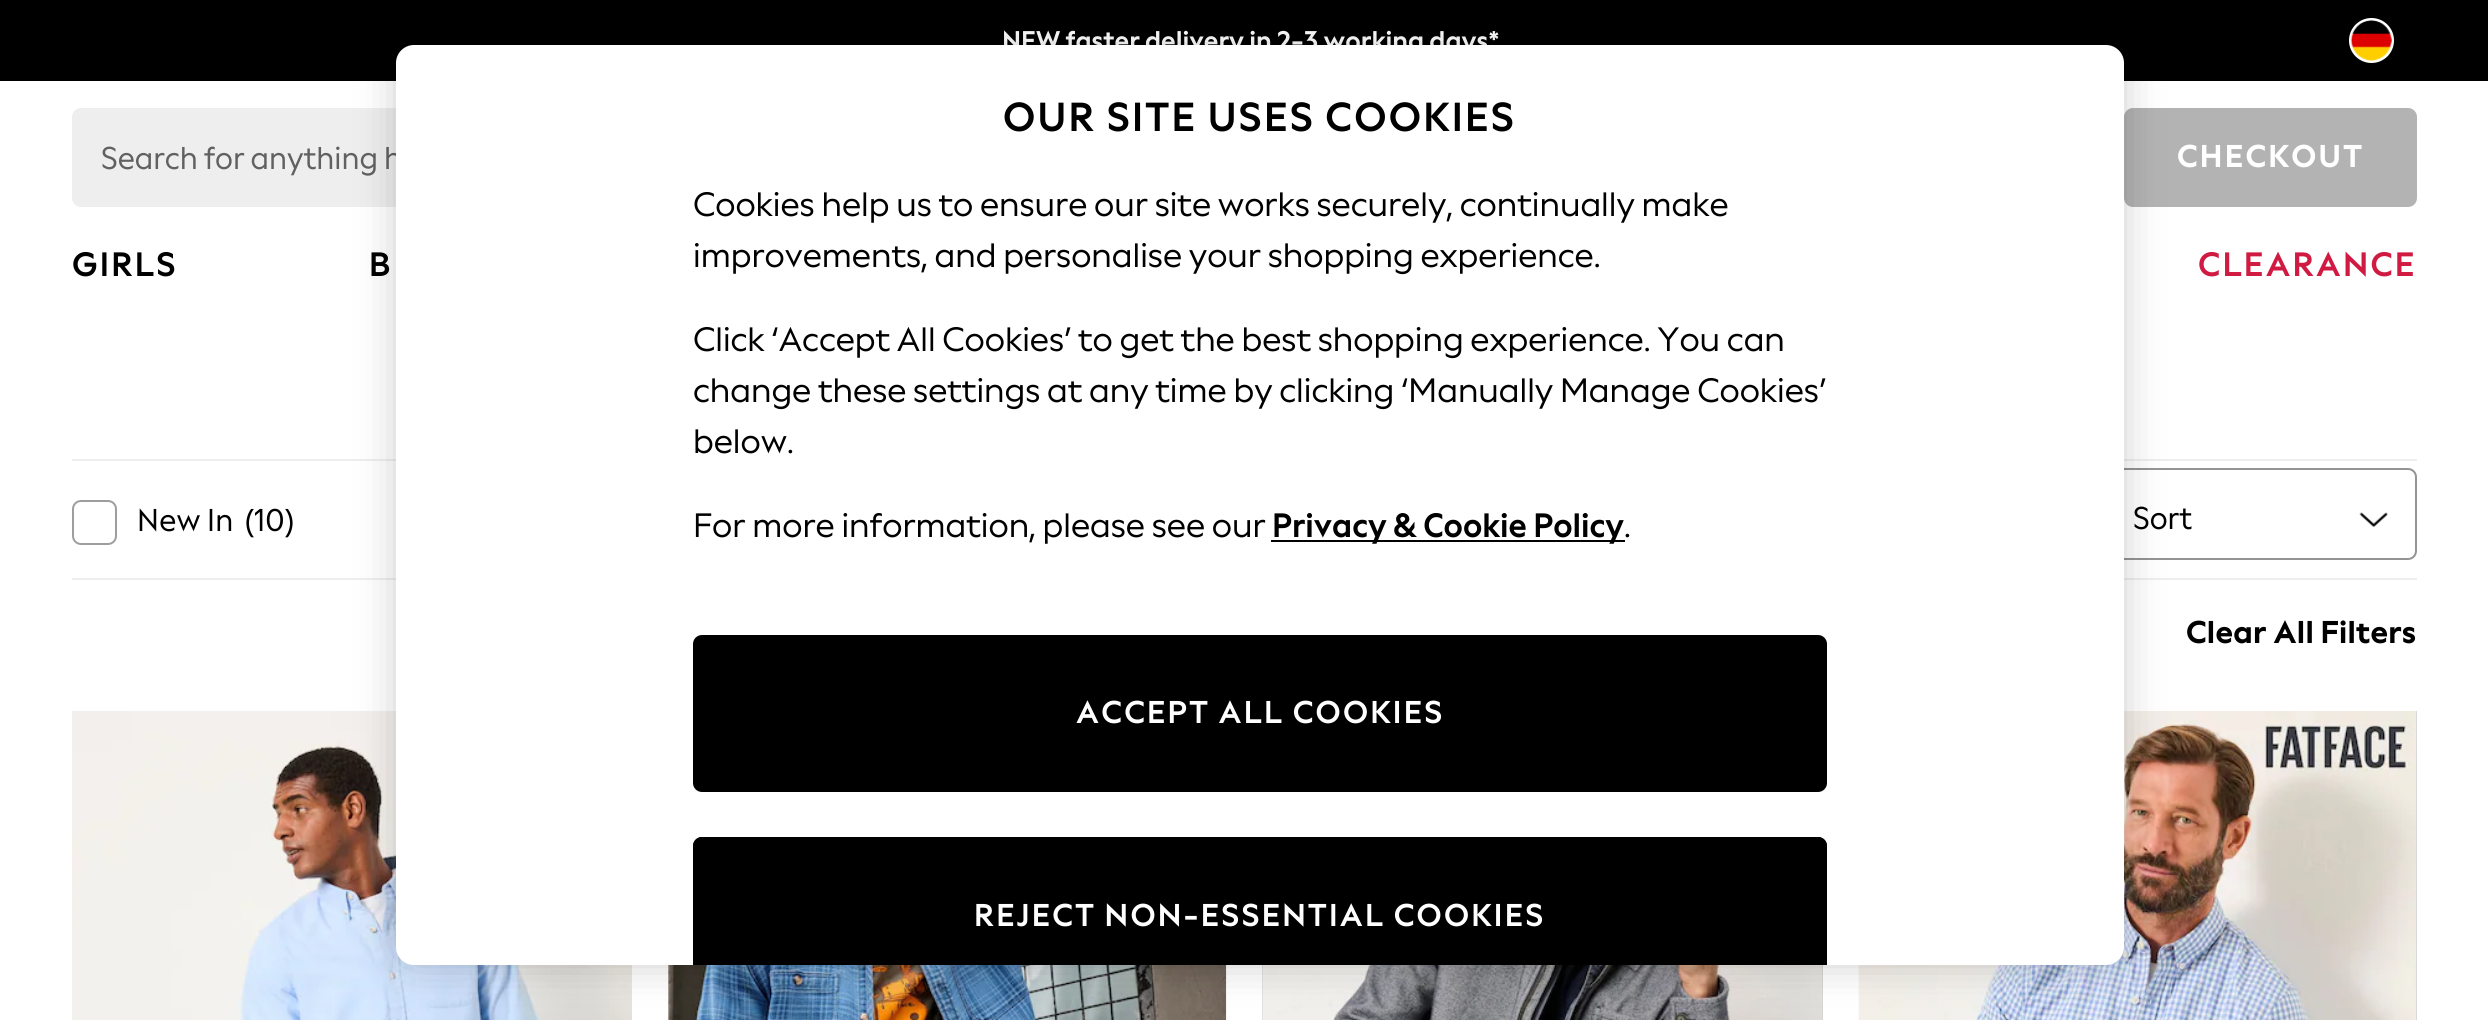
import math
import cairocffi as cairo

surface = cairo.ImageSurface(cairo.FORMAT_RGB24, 2488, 1020)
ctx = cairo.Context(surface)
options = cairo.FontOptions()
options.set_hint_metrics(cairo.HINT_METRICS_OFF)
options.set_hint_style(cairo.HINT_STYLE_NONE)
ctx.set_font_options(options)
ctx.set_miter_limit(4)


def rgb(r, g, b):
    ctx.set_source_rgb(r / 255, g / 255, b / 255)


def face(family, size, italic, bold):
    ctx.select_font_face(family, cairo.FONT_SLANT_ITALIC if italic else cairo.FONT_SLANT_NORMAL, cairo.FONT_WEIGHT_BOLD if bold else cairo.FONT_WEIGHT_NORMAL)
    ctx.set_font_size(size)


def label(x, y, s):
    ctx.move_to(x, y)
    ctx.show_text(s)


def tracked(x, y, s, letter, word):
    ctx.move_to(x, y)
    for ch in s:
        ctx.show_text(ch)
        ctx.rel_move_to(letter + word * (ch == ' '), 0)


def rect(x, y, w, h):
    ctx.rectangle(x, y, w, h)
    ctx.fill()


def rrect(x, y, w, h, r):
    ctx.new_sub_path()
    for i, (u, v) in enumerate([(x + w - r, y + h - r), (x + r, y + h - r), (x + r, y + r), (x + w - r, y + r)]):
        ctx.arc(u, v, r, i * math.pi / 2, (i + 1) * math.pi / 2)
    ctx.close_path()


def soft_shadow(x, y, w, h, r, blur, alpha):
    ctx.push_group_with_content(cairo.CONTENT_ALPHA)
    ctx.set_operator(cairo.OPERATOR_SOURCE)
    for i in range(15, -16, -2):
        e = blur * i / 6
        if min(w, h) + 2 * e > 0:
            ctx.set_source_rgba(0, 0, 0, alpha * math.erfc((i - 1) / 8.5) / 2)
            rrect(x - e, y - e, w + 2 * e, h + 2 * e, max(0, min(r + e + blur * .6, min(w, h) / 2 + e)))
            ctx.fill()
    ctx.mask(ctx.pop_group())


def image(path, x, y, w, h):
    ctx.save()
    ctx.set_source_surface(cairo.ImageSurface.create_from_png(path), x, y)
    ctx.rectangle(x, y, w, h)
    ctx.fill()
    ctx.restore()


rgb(255, 255, 255)
ctx.paint()
rgb(0, 0, 0)
rect(0, 0, 2488, 81)
face('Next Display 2', 27, 0, 1)
rgb(255, 255, 255)
label(1002, 50, 'NEW faster delivery in 2-3 working days*')
ctx.new_path()
ctx.arc(2371.5, 40.5, 21.5, 0, 2 * math.pi)
ctx.fill_preserve()
ctx.stroke()
image('image0.png', 2350, 20, 42, 41)
rgb(238, 238, 238)
rrect(73, 109, 583, 97, 8)
ctx.fill_preserve()
ctx.stroke()
face('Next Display', 31.5, 0, 0)
rgb(97, 97, 97)
label(101, 169, 'Search for anything h')
rgb(179, 179, 179)
rrect(2124, 108, 293, 99, 9)
ctx.fill()
face('Next Display ExtraBold', 31.5, 0, 0)
rgb(255, 255, 255)
tracked(2177, 167, 'CHECKOUT', 2.25, 0)
face('Next Display', 33.75, 0, 1)
rgb(0, 0, 0)
tracked(72, 276, 'GIRLS', 2.25, 0)
tracked(369, 276, 'B', 2.25, 0)
rgb(208, 26, 66)
tracked(2198, 276, 'CLEARANCE', 2.25, 0)
rgb(238, 238, 238)
rect(72, 459, 2345, 2)
rect(72, 578, 2345, 2)
image('image1.png', 2359, 512, 29, 15)
rrect(2098, 469, 318, 90, 8)
rgb(148, 148, 148)
ctx.stroke()
image('image2.png', 72, 711, 560, 309)
rgb(209, 209, 209)
rect(668, 965, 1, 55)
image('image3.png', 668, 965, 559, 55)
rect(1262, 965, 561, 55)
image('image4.png', 1262, 965, 561, 55)
rect(2416, 711, 1, 309)
image('image5.png', 1858, 711, 559, 309)
rgb(0, 0, 0)
soft_shadow(396, 45, 1728, 920, 18, 20, 0.2)
rgb(255, 255, 255)
rrect(396, 45, 1728, 920, 18)
ctx.fill()
face('Next Display', 40.5, 0, 1)
rgb(0, 0, 0)
tracked(1003, 131, 'OUR SITE USES COOKIES', 2.25, 0)
face('Next Display 2', 33.75, 0, 0)
label(693, 216, 'Cookies help us to ensure our site works securely, continually make')
label(693, 267, 'improvements, and personalise your shopping experience.')
label(693, 351, 'Click ‘Accept All Cookies’ to get the best shopping experience. You can')
label(693, 402, 'change these settings at any time by clicking ‘Manually Manage Cookies’')
label(693, 453, 'below.')
label(693, 537, 'For more information, please see our')
rect(1271, 540, 354, 2)
face('Next Display 2', 33.75, 0, 1)
label(1272, 537, 'Privacy & Cookie Policy')
face('Next Display 2', 33.75, 0, 0)
label(1624, 537, '.')
rrect(694, 636, 1132, 155, 8)
ctx.fill_preserve()
ctx.stroke()
face('Next Display', 31.5, 0, 1)
rgb(255, 255, 255)
tracked(1076, 723, 'ACCEPT ALL COOKIES', 2.25, 0)
rgb(0, 0, 0)
ctx.new_path()
ctx.move_to(702, 837)
ctx.line_to(1818, 837)
ctx.curve_to(1823, 837, 1827, 841, 1827, 846)
ctx.line_to(1827, 965)
ctx.line_to(693, 965)
ctx.line_to(693, 846)
ctx.curve_to(693, 841, 697, 837, 702, 837)
ctx.close_path()
ctx.fill()
ctx.new_path()
ctx.move_to(702, 837)
ctx.curve_to(697, 837, 693, 841, 693, 846)
ctx.line_to(693, 965)
ctx.line_to(695, 965)
ctx.line_to(695, 846)
ctx.curve_to(695, 842, 698, 839, 702, 839)
ctx.line_to(1818, 839)
ctx.curve_to(1822, 839, 1825, 842, 1825, 846)
ctx.line_to(1825, 965)
ctx.line_to(1827, 965)
ctx.line_to(1827, 846)
ctx.curve_to(1827, 841, 1823, 837, 1818, 837)
ctx.close_path()
ctx.fill()
rgb(255, 255, 255)
tracked(974, 926, 'REJECT NON-ESSENTIAL COOKIES', 2.25, 0)
rrect(73, 501, 43, 43, 8)
rgb(158, 158, 158)
ctx.stroke()
face('Next Display', 31.5, 0, 0)
rgb(0, 0, 0)
tracked(137, 531, 'New In', 0.25, 0)
tracked(245, 531, '(10)', 0.25, 0)
label(2133, 529, 'Sort')
face('Next Display ExtraBold', 31.5, 0, 0)
tracked(2186, 643, 'Clear All Filters', 0.25, 0)
surface.write_to_png('render.png')
